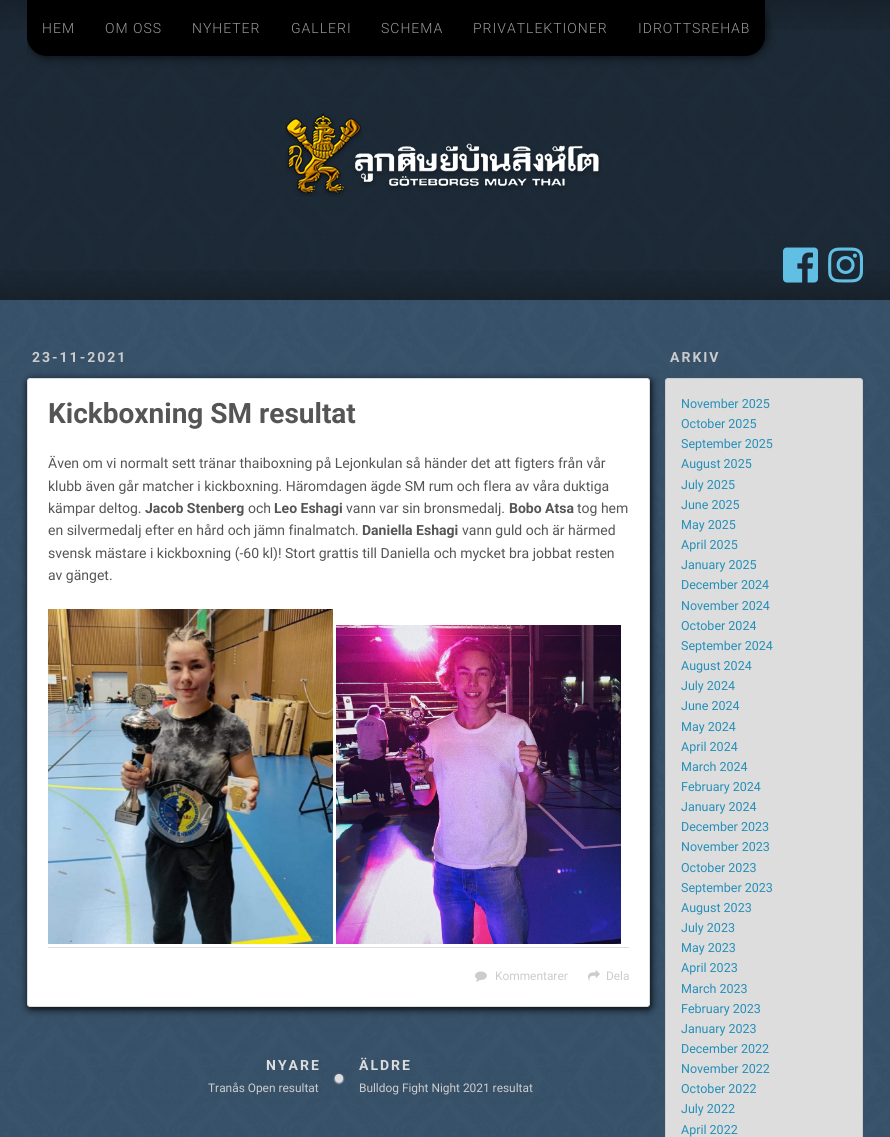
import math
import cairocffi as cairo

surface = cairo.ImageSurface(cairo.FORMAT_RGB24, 890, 1137)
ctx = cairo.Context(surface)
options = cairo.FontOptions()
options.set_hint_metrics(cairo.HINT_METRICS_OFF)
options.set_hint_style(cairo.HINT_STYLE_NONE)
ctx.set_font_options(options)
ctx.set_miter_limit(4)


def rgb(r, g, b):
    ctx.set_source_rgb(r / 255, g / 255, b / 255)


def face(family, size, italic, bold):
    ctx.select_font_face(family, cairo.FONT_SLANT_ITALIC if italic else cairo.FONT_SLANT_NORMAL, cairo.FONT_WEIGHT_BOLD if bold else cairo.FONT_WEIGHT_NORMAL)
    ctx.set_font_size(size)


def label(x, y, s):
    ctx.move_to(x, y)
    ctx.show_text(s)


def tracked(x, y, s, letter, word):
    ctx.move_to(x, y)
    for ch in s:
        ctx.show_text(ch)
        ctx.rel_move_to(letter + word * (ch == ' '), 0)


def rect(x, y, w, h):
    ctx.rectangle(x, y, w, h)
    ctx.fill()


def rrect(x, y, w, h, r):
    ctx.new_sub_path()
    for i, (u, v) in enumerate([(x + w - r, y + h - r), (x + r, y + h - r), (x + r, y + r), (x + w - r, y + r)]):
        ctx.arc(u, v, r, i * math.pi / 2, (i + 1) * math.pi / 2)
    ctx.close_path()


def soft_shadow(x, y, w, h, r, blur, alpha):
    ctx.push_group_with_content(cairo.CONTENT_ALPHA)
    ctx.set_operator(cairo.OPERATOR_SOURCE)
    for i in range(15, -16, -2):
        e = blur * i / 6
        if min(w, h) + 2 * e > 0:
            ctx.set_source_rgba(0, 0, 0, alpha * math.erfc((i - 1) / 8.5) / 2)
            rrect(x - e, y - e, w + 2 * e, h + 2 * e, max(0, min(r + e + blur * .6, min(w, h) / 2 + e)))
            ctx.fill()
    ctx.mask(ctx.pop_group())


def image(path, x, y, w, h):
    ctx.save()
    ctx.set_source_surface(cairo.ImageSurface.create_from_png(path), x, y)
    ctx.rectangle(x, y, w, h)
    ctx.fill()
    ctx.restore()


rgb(255, 255, 255)
ctx.paint()
image('image0.png', 0, 0, 890, 1137)
rgb(128, 128, 128)
soft_shadow(820, 1063, 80, 60, 2, 2.5, 1)
image('image1.png', 0, 2, 890, 1125)
ctx.set_source_rgba(0, 0, 0, 0.49)
rect(0, 0, 890, 300)
gradient = cairo.LinearGradient(445, 0, 445, 40)
gradient.add_color_stop_rgba(0, 0, 0, 0, 0.2)
gradient.add_color_stop_rgba(1, 0, 0, 0, 0)
ctx.set_source(gradient)
rect(0, 0, 890, 30)
ctx.save()
ctx.rectangle(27, 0, 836, 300)
ctx.clip()
rgb(0, 0, 0)
soft_shadow(28, 1, 738, 56, 20, 5, 0.71)
ctx.restore()
rgb(0, 0, 0)
ctx.new_path()
ctx.move_to(27, 0)
ctx.line_to(765, 0)
ctx.line_to(765, 36)
ctx.curve_to(765, 47, 756, 56, 745, 56)
ctx.line_to(47, 56)
ctx.curve_to(36, 56, 27, 47, 27, 36)
ctx.close_path()
ctx.fill()
face('Roboto Light', 14, 0, 0)
rgb(153, 153, 153)
tracked(42, 33, 'HEM', 1, 0)
tracked(105, 33, 'OM OSS', 1, 0)
tracked(192, 33, 'NYHETER', 1, 0)
tracked(291, 33, 'GALLERI', 1, 0)
tracked(381, 33, 'SCHEMA', 1, 0)
tracked(473, 33, 'PRIVATLEKTIONER', 1, 0)
tracked(638, 33, 'IDROTTSREHAB', 1, 0)
gradient = cairo.LinearGradient(445, 260, 445, 300)
gradient.add_color_stop_rgba(0, 0, 0, 0, 0)
gradient.add_color_stop_rgba(1, 0, 0, 0, 0.2)
ctx.set_source(gradient)
rect(0, 270, 890, 30)
image('image2.png', 783, 247, 35, 36)
image('image3.png', 828, 247, 35, 36)
image('image4.png', 285, 113, 316, 84)
face('Roboto', 14, 0, 1)
rgb(204, 204, 204)
tracked(32, 362, '23-11-2021', 2, 0)
rgb(0, 0, 0)
soft_shadow(28, 380, 623, 629, 3, 4, 1)
rgb(255, 255, 255)
rrect(27.5, 378.5, 622, 628, 2.5)
ctx.fill_preserve()
rgb(221, 221, 221)
ctx.set_line_width(1)
ctx.stroke()
face('Roboto', 28, 0, 1)
rgb(85, 85, 85)
label(48, 423, 'Kickboxning SM resultat')
face('Roboto', 14, 0, 0)
label(48, 468, 'Även om vi normalt sett tränar thaiboxning på Lejonkulan så händer det att figters från vår')
label(48, 491, 'klubb även går matcher i kickboxning. Häromdagen ägde SM rum och flera av våra duktiga')
label(48, 513, 'kämpar deltog.')
face('Roboto', 14, 0, 1)
label(145, 513, 'Jacob Stenberg')
face('Roboto', 14, 0, 0)
label(248, 513, 'och')
face('Roboto', 14, 0, 1)
label(274, 513, 'Leo Eshagi')
face('Roboto', 14, 0, 0)
label(346, 513, 'vann var sin bronsmedalj.')
face('Roboto', 14, 0, 1)
label(509, 513, 'Bobo Atsa')
face('Roboto', 14, 0, 0)
label(577, 513, 'tog hem')
label(48, 535, 'en silvermedalj efter en hård och jämn finalmatch.')
face('Roboto', 14, 0, 1)
label(362, 535, 'Daniella Eshagi')
face('Roboto', 14, 0, 0)
label(462, 535, 'vann guld och är härmed')
label(48, 558, 'svensk mästare i kickboxning (-60 kl)! Stort grattis till Daniella och mycket bra jobbat resten')
label(48, 580, 'av gänget.')
image('image5.png', 48, 609, 285, 335)
image('image6.png', 336, 625, 285, 319)
rgb(221, 221, 221)
rect(48, 947, 581, 1)
image('image7.png', 475, 971, 12, 11)
face('Roboto', 11.9, 0, 0)
rgb(204, 204, 204)
label(495, 980, 'Kommentarer')
image('image8.png', 588, 970, 12, 11)
label(606, 980, 'Dela')
face('Roboto', 14, 0, 1)
rgb(221, 221, 221)
tracked(266, 1070, 'NYARE', 2, 0)
face('Roboto', 11.9, 0, 0)
rgb(204, 204, 204)
label(208, 1092, 'Tranås Open resultat')
rgb(255, 255, 255)
soft_shadow(335, 1075, 8, 8, 4, 1, 1)
rgb(221, 221, 221)
ctx.arc(339, 1078, 4, 0, 2 * math.pi)
ctx.fill()
face('Roboto', 14, 0, 1)
tracked(359, 1070, 'ÄLDRE', 2, 0)
face('Roboto', 11.9, 0, 0)
rgb(204, 204, 204)
label(359, 1092, 'Bulldog Fight Night 2021 resultat')
face('Roboto', 14, 0, 1)
tracked(670, 362, 'ARKIV', 2, 0)
rgb(221, 221, 221)
rrect(665.5, 378.5, 197, 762, 2.5)
ctx.fill_preserve()
rgb(204, 204, 204)
ctx.stroke()
face('Roboto', 12.5, 0, 0)
rgb(37, 143, 184)
label(681, 408, 'November 2025')
label(681, 428, 'October 2025')
label(681, 448, 'September 2025')
label(681, 468, 'August 2025')
label(681, 489, 'July 2025')
label(681, 509, 'June 2025')
label(681, 529, 'May 2025')
label(681, 549, 'April 2025')
label(681, 569, 'January 2025')
label(681, 589, 'December 2024')
label(681, 610, 'November 2024')
label(681, 630, 'October 2024')
label(681, 650, 'September 2024')
label(681, 670, 'August 2024')
label(681, 690, 'July 2024')
label(681, 710, 'June 2024')
label(681, 731, 'May 2024')
label(681, 751, 'April 2024')
label(681, 771, 'March 2024')
label(681, 791, 'February 2024')
label(681, 811, 'January 2024')
label(681, 831, 'December 2023')
label(681, 851, 'November 2023')
label(681, 872, 'October 2023')
label(681, 892, 'September 2023')
label(681, 912, 'August 2023')
label(681, 932, 'July 2023')
label(681, 952, 'May 2023')
label(681, 972, 'April 2023')
label(681, 993, 'March 2023')
label(681, 1013, 'February 2023')
label(681, 1033, 'January 2023')
label(681, 1053, 'December 2022')
label(681, 1073, 'November 2022')
label(681, 1093, 'October 2022')
label(681, 1113, 'July 2022')
label(681, 1134, 'April 2022')
surface.write_to_png('render.png')
